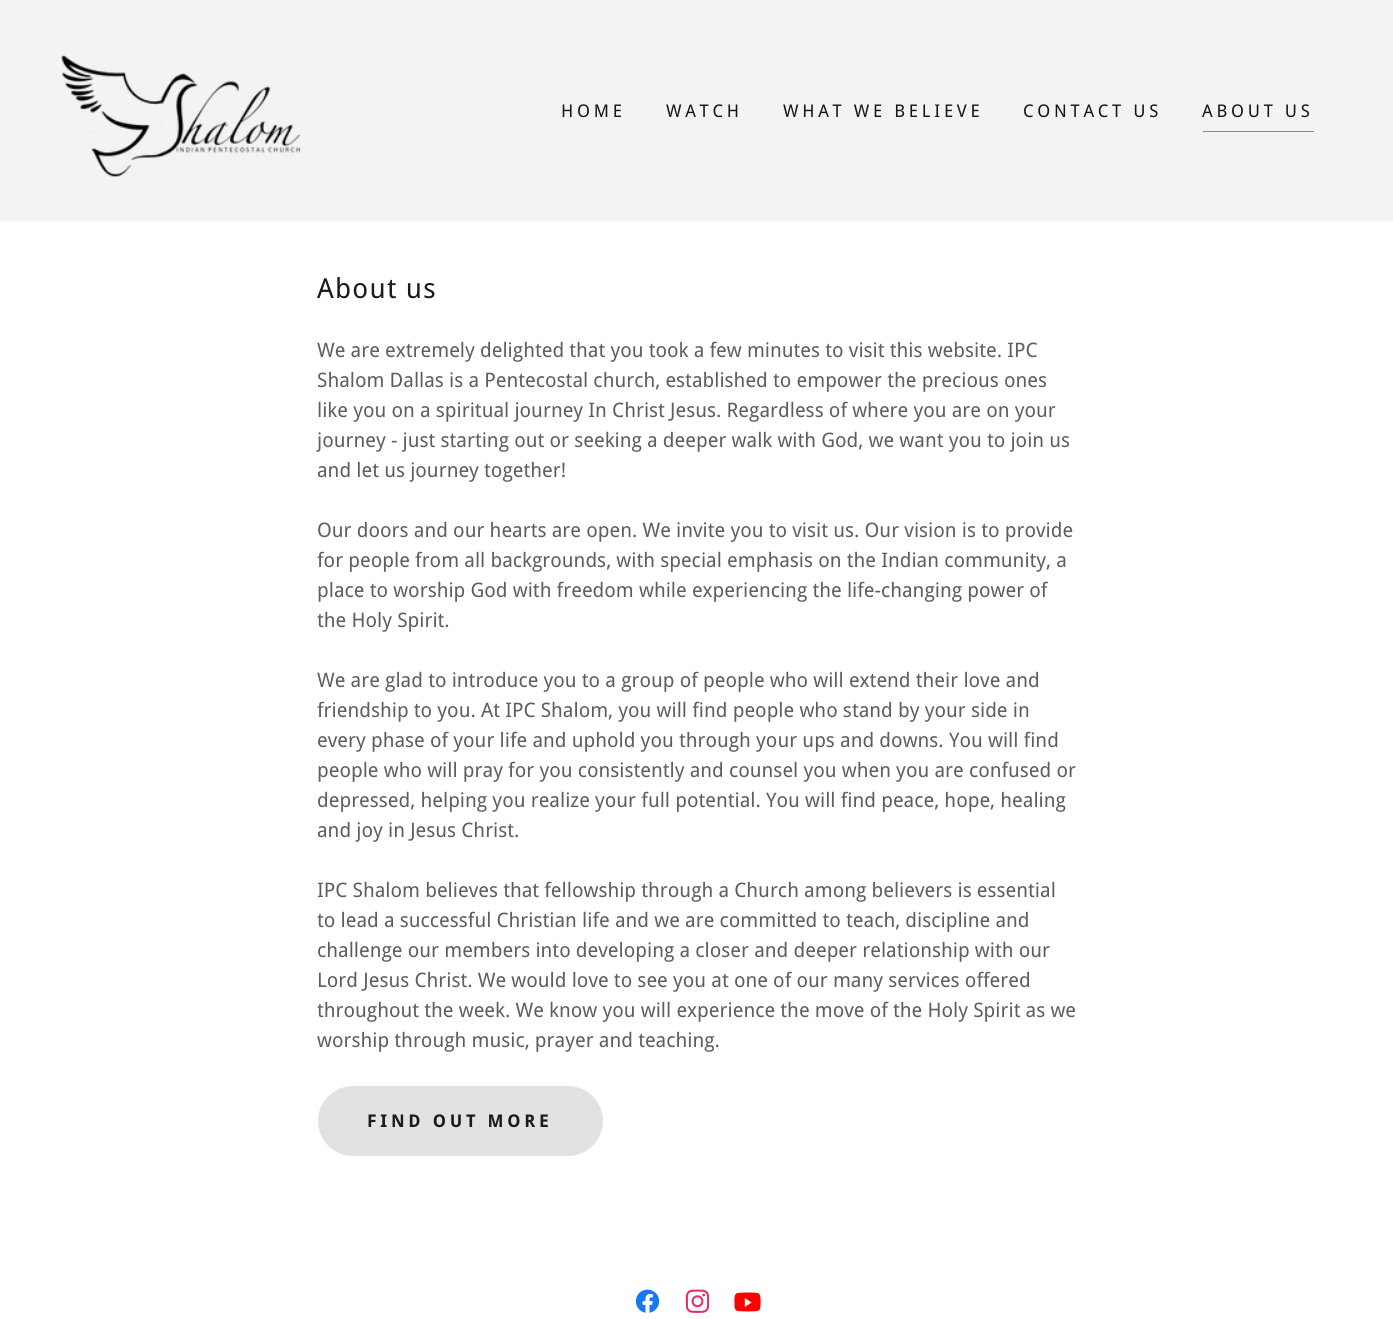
import math
import cairocffi as cairo

surface = cairo.ImageSurface(cairo.FORMAT_RGB24, 1393, 1319)
ctx = cairo.Context(surface)
options = cairo.FontOptions()
options.set_hint_metrics(cairo.HINT_METRICS_OFF)
options.set_hint_style(cairo.HINT_STYLE_NONE)
ctx.set_font_options(options)
ctx.set_miter_limit(4)


def rgb(r, g, b):
    ctx.set_source_rgb(r / 255, g / 255, b / 255)


def face(family, size, italic, bold):
    ctx.select_font_face(family, cairo.FONT_SLANT_ITALIC if italic else cairo.FONT_SLANT_NORMAL, cairo.FONT_WEIGHT_BOLD if bold else cairo.FONT_WEIGHT_NORMAL)
    ctx.set_font_size(size)


def label(x, y, s):
    ctx.move_to(x, y)
    ctx.show_text(s)


def tracked(x, y, s, letter, word):
    ctx.move_to(x, y)
    for ch in s:
        ctx.show_text(ch)
        ctx.rel_move_to(letter + word * (ch == ' '), 0)


def rect(x, y, w, h):
    ctx.rectangle(x, y, w, h)
    ctx.fill()


def rrect(x, y, w, h, r):
    ctx.new_sub_path()
    for i, (u, v) in enumerate([(x + w - r, y + h - r), (x + r, y + h - r), (x + r, y + r), (x + w - r, y + r)]):
        ctx.arc(u, v, r, i * math.pi / 2, (i + 1) * math.pi / 2)
    ctx.close_path()


def image(path, x, y, w, h):
    ctx.save()
    ctx.set_source_surface(cairo.ImageSurface.create_from_png(path), x, y)
    ctx.rectangle(x, y, w, h)
    ctx.fill()
    ctx.restore()


rgb(255, 255, 255)
ctx.paint()
rgb(243, 243, 243)
rect(0, 0, 1393, 221)
image('image0.png', 61, 55, 240, 122)
face('Droid Sans', 17.5, 0, 0)
rgb(21, 21, 21)
tracked(561, 117, 'HOME', 3.75, 0)
tracked(666, 117, 'WATCH', 3.75, 0)
tracked(783, 117, 'WHAT WE BELIEVE', 3.75, 0)
tracked(1023, 117, 'CONTACT US', 3.75, 0)
rgb(137, 137, 137)
rect(1203, 131, 111, 1)
rgb(21, 21, 21)
tracked(1202, 117, 'ABOUT US', 3.75, 0)
face('Droid Sans', 27.5, 0, 0)
rgb(27, 27, 27)
tracked(317, 298, 'About us', 1.25, 0)
face('Droid Sans', 20, 0, 0)
rgb(94, 94, 94)
label(317, 357, 'We are extremely delighted that you took a few minutes to visit this website. IPC')
label(317, 387, 'Shalom Dallas is a Pentecostal church, established to empower the precious ones')
label(317, 417, 'like you on a spiritual journey In Christ Jesus. Regardless of where you are on your')
label(317, 447, 'journey - just starting out or seeking a deeper walk with God, we want you to join us')
label(317, 477, 'and let us journey together!')
label(317, 537, 'Our doors and our hearts are open. We invite you to visit us. Our vision is to provide')
label(317, 567, 'for people from all backgrounds, with special emphasis on the Indian community, a')
label(317, 597, 'place to worship God with freedom while experiencing the life-changing power of')
label(317, 627, 'the Holy Spirit.')
label(317, 687, 'We are glad to introduce you to a group of people who will extend their love and')
label(317, 717, 'friendship to you. At IPC Shalom, you will find people who stand by your side in')
label(317, 747, 'every phase of your life and uphold you through your ups and downs. You will find')
label(317, 777, 'people who will pray for you consistently and counsel you when you are confused or')
label(317, 807, 'depressed, helping you realize your full potential. You will find peace, hope, healing')
label(317, 837, 'and joy in Jesus Christ.')
label(317, 897, 'IPC Shalom believes that fellowship through a Church among believers is essential')
label(317, 927, 'to lead a successful Christian life and we are committed to teach, discipline and')
label(317, 957, 'challenge our members into developing a closer and deeper relationship with our')
label(317, 987, 'Lord Jesus Christ. We would love to see you at one of our many services offered')
label(317, 1017, 'throughout the week. We know you will experience the move of the Holy Spirit as we')
label(317, 1047, 'worship through music, prayer and teaching.')
rgb(226, 226, 226)
rrect(318, 1086, 285, 70, 35)
ctx.fill()
face('Droid Sans', 17.5, 0, 1)
rgb(27, 27, 27)
tracked(367, 1127, 'FIND OUT MORE', 3.75, 0)
image('image1.png', 635, 1289, 25, 24)
image('image2.png', 685, 1289, 25, 24)
image('image3.png', 734, 1292, 27, 20)
surface.write_to_png('render.png')
